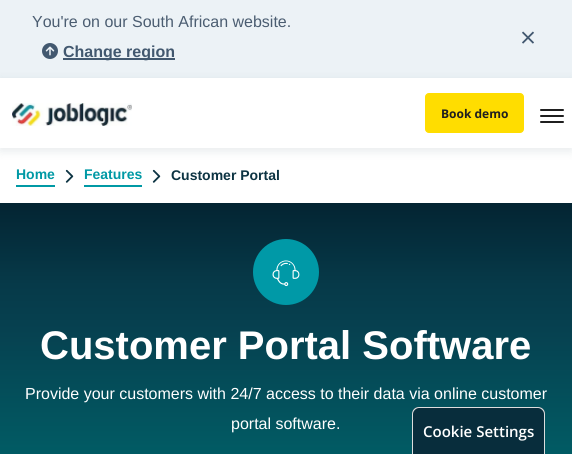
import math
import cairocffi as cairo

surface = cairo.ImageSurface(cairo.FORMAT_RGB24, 572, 454)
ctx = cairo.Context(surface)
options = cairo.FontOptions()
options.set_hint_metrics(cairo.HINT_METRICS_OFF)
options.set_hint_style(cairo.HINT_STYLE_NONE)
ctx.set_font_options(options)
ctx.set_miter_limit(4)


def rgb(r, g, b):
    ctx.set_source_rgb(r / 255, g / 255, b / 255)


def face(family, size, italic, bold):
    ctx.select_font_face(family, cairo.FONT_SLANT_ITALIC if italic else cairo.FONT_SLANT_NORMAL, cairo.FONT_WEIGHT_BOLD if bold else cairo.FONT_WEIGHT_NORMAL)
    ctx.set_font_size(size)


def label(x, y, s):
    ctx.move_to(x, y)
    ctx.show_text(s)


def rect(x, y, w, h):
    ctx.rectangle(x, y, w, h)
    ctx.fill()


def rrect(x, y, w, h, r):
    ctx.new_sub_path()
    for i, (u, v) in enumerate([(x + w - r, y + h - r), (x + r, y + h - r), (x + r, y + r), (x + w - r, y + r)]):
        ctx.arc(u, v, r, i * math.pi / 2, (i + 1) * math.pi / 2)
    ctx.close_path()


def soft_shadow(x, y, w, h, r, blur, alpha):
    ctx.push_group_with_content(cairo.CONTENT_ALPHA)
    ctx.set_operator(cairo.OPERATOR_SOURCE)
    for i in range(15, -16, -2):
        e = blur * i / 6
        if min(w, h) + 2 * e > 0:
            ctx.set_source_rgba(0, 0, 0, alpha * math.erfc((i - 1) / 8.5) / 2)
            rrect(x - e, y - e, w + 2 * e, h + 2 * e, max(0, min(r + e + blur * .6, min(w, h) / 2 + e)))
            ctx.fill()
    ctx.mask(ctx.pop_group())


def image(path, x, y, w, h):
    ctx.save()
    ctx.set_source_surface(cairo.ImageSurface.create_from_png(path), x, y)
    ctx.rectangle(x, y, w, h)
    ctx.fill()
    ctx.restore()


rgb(255, 255, 255)
ctx.paint()
rgb(236, 242, 246)
rect(0, 0, 572, 78)
face('Liberation Sans', 16, 0, 0)
rgb(75, 93, 113)
label(32, 27, 'You\'re on our South African website.')
image('image0.png', 42, 43, 16, 16)
rgb(66, 88, 111)
rect(63, 58, 112, 2)
face('Liberation Sans', 16, 0, 1)
label(63, 57, 'Change region')
image('image1.png', 522, 31, 12, 13)
ctx.save()
ctx.set_fill_rule(cairo.FILL_RULE_EVEN_ODD)
ctx.new_path()
ctx.move_to(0, 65)
ctx.line_to(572, 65)
ctx.line_to(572, 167)
ctx.line_to(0, 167)
ctx.close_path()
ctx.move_to(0, 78)
ctx.line_to(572, 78)
ctx.line_to(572, 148)
ctx.line_to(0, 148)
ctx.close_path()
ctx.clip()
rgb(8, 46, 61)
soft_shadow(0, 81, 572, 70, 0, 5, 0.1)
ctx.restore()
image('image2.png', 12, 103, 120, 23)
rgb(255, 221, 0)
rrect(425.5, 93.5, 98, 39, 3.5)
ctx.fill_preserve()
ctx.set_line_width(1)
ctx.stroke()
face('Open Sans', 12, 0, 1)
rgb(31, 31, 31)
label(441, 118, 'Book demo')
rrect(540, 109, 24, 2, 1)
ctx.fill()
rrect(540, 115, 24, 2, 1)
ctx.fill()
rrect(540, 121, 24, 2, 1)
ctx.fill()
rgb(0, 153, 165)
rect(16, 185, 39, 2)
face('Liberation Sans', 14, 0, 1)
label(16, 179, 'Home')
image('image3.png', 65, 169, 9, 14)
rect(84, 185, 58, 2)
label(84, 179, 'Features')
image('image3.png', 152, 169, 9, 14)
rgb(13, 52, 67)
label(171, 180, 'Customer Portal')
gradient = cairo.LinearGradient(286, 203, 286, 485)
gradient.add_color_stop_rgba(0.01, 0.016, 0.145, 0.2, 1)
gradient.add_color_stop_rgba(0.29, 0.024, 0.227, 0.286, 1)
gradient.add_color_stop_rgba(0.45, 0.024, 0.255, 0.314, 1)
gradient.add_color_stop_rgba(1, 0, 0.384, 0.412, 1)
ctx.set_source(gradient)
rect(0, 203, 572, 251)
rgb(0, 153, 167)
ctx.new_path()
ctx.arc(286, 272, 33, 0, 2 * math.pi)
ctx.fill()
image('image4.png', 272, 260, 28, 27)
face('Liberation Sans', 40, 0, 1)
rgb(255, 255, 255)
label(40, 359, 'Customer Portal Software')
face('Liberation Sans', 16, 0, 0)
label(25, 399, 'Provide your customers with 24/7 access to their data via online customer')
label(231, 429, 'portal software.')
rgb(8, 45, 60)
ctx.new_path()
ctx.move_to(419, 407)
ctx.line_to(538, 407)
ctx.curve_to(542, 407, 545, 410, 545, 414)
ctx.line_to(545, 454)
ctx.line_to(412, 454)
ctx.line_to(412, 414)
ctx.curve_to(412, 410, 415, 407, 419, 407)
ctx.close_path()
ctx.fill()
rgb(221, 221, 221)
ctx.set_fill_rule(cairo.FILL_RULE_EVEN_ODD)
ctx.new_path()
ctx.move_to(419, 407)
ctx.line_to(538, 407)
ctx.curve_to(542, 407, 545, 410, 545, 414)
ctx.line_to(545, 454)
ctx.line_to(412, 454)
ctx.line_to(412, 414)
ctx.curve_to(412, 410, 415, 407, 419, 407)
ctx.close_path()
ctx.move_to(419, 408)
ctx.line_to(538, 408)
ctx.curve_to(541, 408, 544, 411, 544, 414)
ctx.line_to(544, 454)
ctx.line_to(413, 454)
ctx.line_to(413, 414)
ctx.curve_to(413, 411, 416, 408, 419, 408)
ctx.close_path()
ctx.fill()
face('Open Sans SemiBold', 15, 0, 0)
rgb(255, 255, 255)
label(423, 437, 'Cookie Settings')
surface.write_to_png('render.png')
